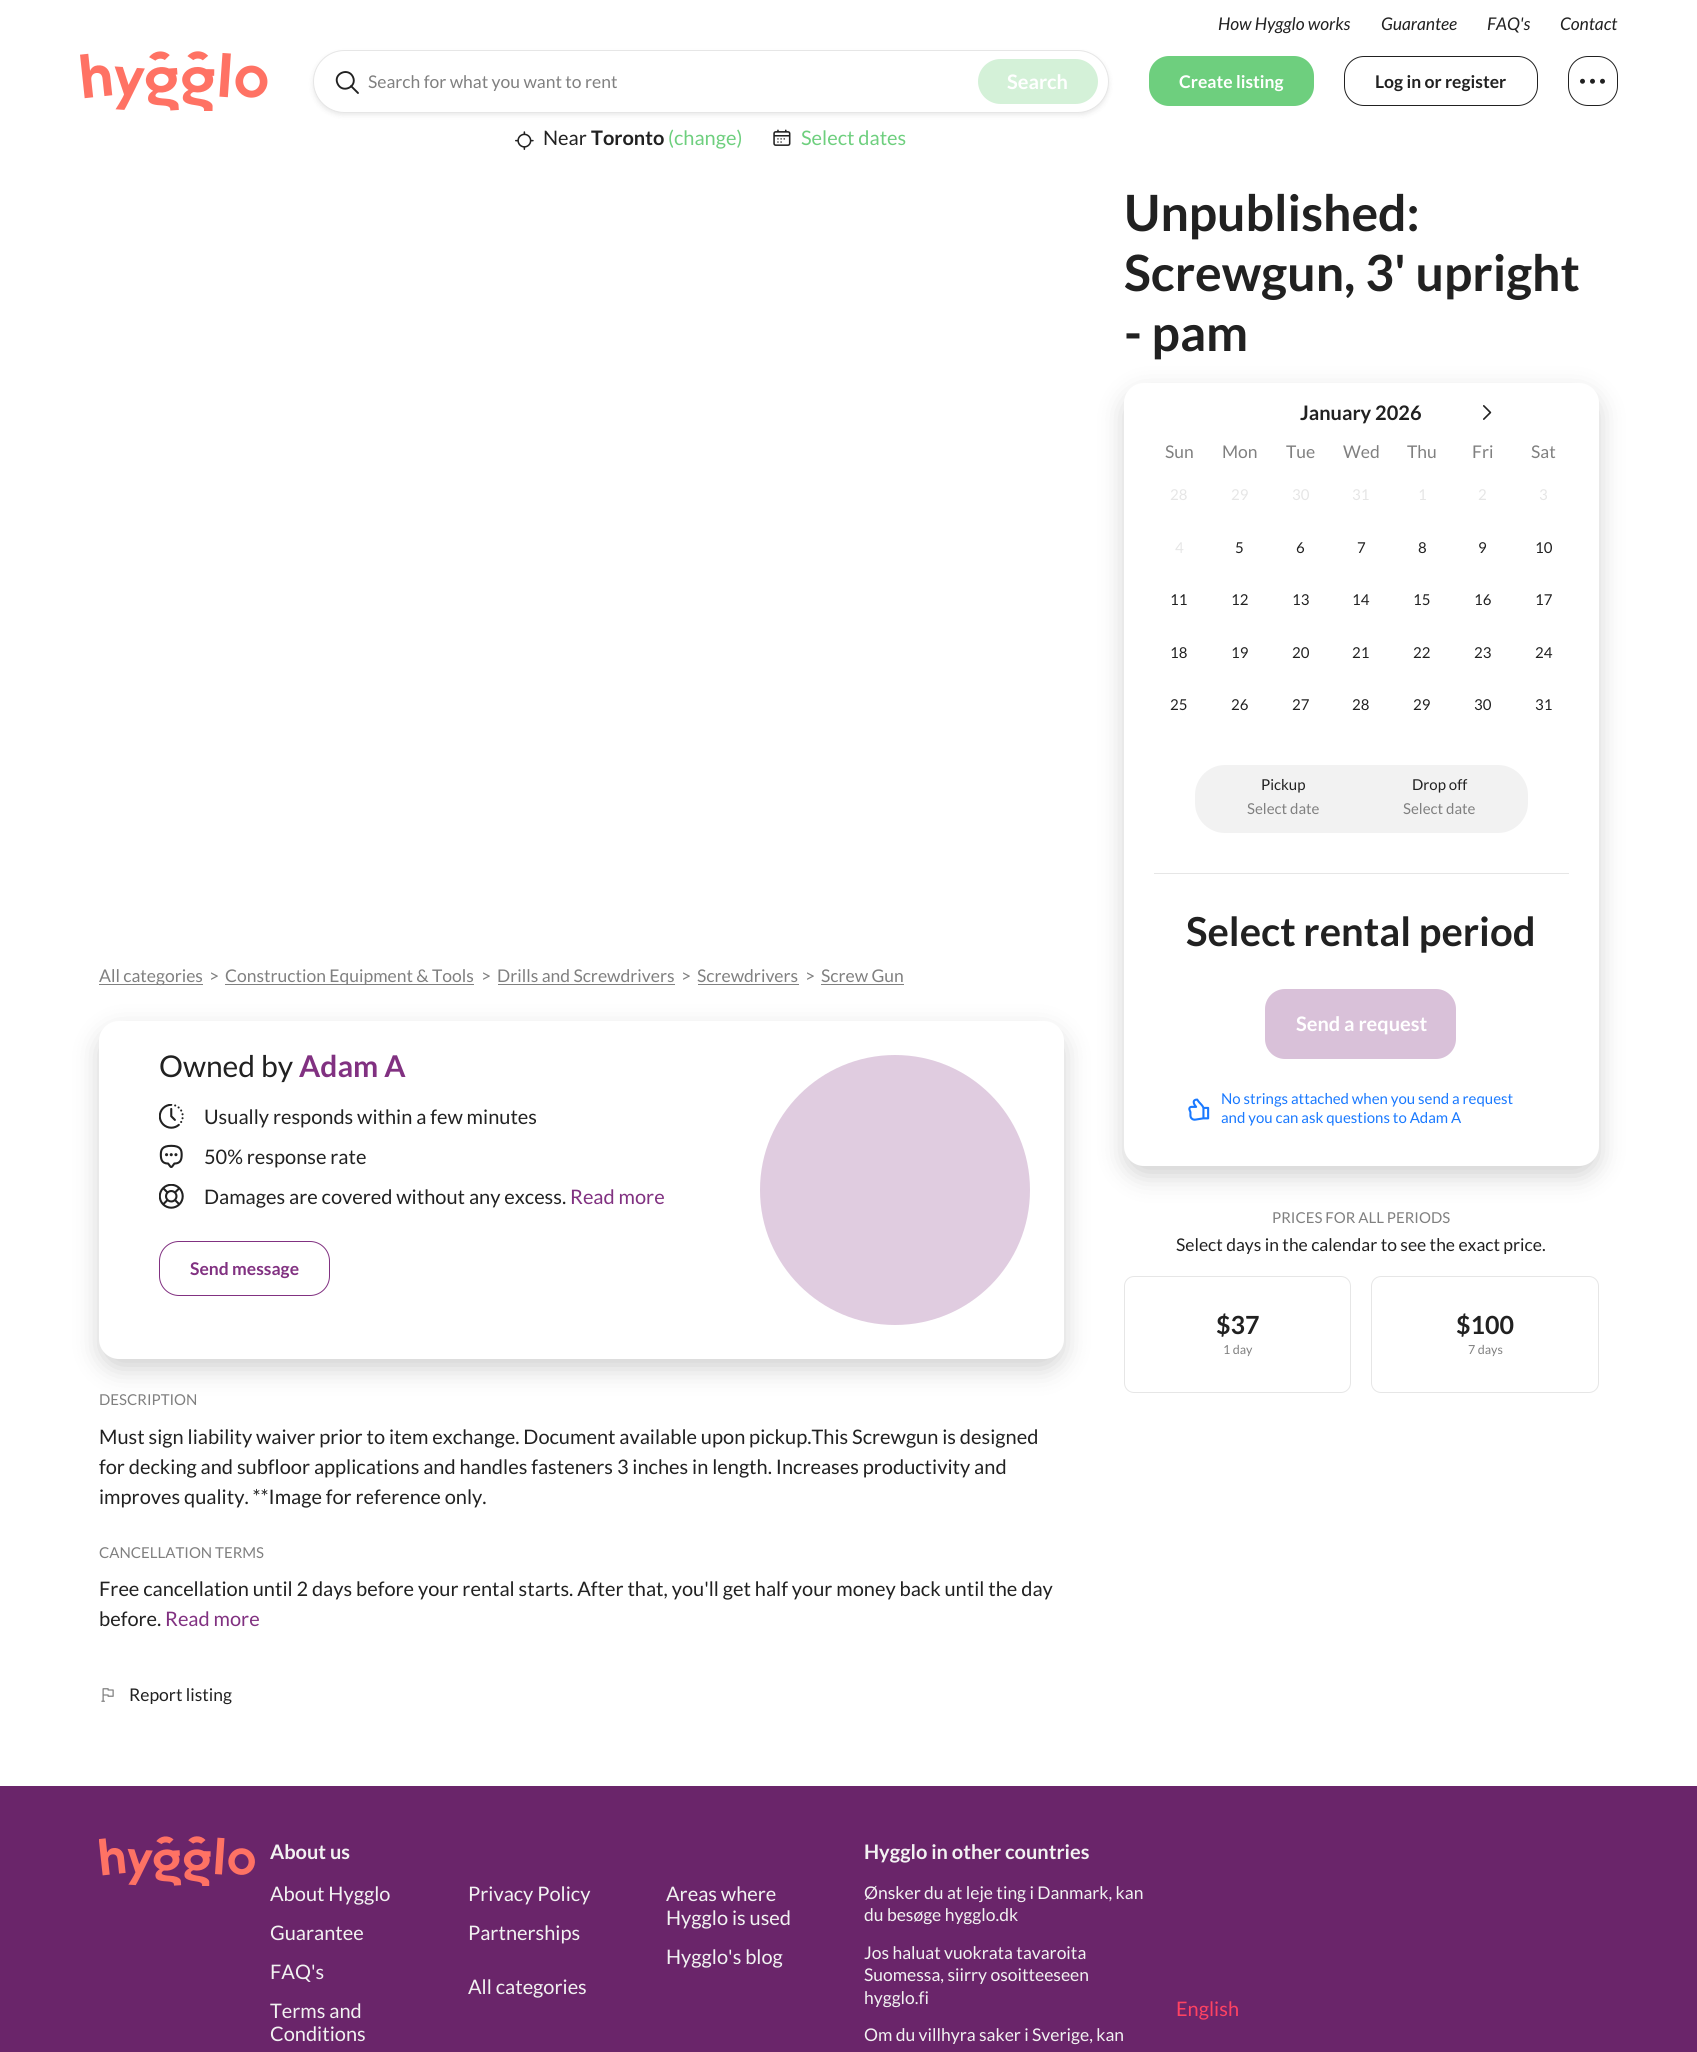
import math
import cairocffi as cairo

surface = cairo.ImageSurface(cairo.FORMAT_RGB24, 1697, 2052)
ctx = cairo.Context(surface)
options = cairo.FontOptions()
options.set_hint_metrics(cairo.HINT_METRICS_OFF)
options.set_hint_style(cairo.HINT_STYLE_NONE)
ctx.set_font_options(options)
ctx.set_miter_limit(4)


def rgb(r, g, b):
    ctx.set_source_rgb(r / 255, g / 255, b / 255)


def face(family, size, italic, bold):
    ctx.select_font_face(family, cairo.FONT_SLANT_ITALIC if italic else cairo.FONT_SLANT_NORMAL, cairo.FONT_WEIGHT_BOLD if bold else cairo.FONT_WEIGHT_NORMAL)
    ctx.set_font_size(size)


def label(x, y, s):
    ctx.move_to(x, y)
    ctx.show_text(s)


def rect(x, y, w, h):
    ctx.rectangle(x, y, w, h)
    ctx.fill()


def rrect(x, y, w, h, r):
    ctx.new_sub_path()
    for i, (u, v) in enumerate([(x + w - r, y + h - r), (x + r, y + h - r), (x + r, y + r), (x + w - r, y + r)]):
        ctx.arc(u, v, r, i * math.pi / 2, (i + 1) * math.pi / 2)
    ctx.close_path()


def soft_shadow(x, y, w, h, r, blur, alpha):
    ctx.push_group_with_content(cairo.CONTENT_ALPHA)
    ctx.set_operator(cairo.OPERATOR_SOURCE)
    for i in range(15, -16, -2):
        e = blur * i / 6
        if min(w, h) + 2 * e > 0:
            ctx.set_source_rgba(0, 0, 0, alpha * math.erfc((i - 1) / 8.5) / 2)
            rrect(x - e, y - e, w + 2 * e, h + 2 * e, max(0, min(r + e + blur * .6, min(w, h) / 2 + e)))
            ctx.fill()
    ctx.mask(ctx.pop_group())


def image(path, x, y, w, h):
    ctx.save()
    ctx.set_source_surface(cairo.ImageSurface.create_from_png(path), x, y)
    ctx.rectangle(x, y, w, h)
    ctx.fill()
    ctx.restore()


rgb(255, 255, 255)
ctx.paint()
face('Lato', 17.5, 1, 0)
rgb(33, 33, 33)
label(1218, 30, 'How Hygglo works')
label(1381, 30, 'Guarantee')
label(1487, 30, 'FAQ\'s')
label(1560, 30, 'Contact')
image('image0.png', 80, 51, 188, 60)
rgb(26, 26, 26)
soft_shadow(313, 53, 796, 62, 31, 2.5, 0.1)
rgb(255, 255, 255)
rrect(313.5, 50.5, 795, 62, 31)
ctx.fill_preserve()
rgb(230, 230, 230)
ctx.set_line_width(1)
ctx.stroke()
ctx.new_path()
ctx.move_to(337.5, 83.5)
ctx.curve_to(342, 94, 357.5, 87, 353, 77)
ctx.curve_to(348.5, 67, 333, 73.5, 337.5, 83.5)
ctx.close_path()
ctx.move_to(351, 86)
ctx.line_to(358, 93)
rgb(33, 33, 33)
ctx.set_line_width(1.9)
ctx.set_line_cap(cairo.LINE_CAP_ROUND)
ctx.set_line_join(cairo.LINE_JOIN_ROUND)
ctx.stroke()
face('Lato', 17.5, 0, 0)
rgb(128, 128, 128)
label(368, 88, 'Search for what you want to rent')
rgb(212, 241, 216)
rrect(978, 59, 120, 45, 22.5)
ctx.fill()
face('Lato', 20, 0, 1)
rgb(255, 255, 255)
label(1007, 89, 'Search')
image('image1.png', 515, 131, 19, 19)
face('Lato', 20, 0, 0)
rgb(33, 33, 33)
label(543, 145, 'Near')
face('Lato', 20, 0, 1)
label(591, 145, 'Toronto')
face('Lato', 20, 0, 0)
rgb(110, 207, 126)
label(668, 145, '(change)')
image('image2.png', 773, 129, 18, 17)
label(801, 145, 'Select dates')
rrect(1149, 56, 165, 50, 20)
ctx.fill()
face('Lato', 17.5, 0, 1)
rgb(255, 255, 255)
label(1179, 88, 'Create listing')
rrect(1344.5, 56.5, 193, 49, 19.5)
rgb(33, 33, 33)
ctx.set_line_width(1)
ctx.set_line_cap(cairo.LINE_CAP_BUTT)
ctx.set_line_join(cairo.LINE_JOIN_MITER)
ctx.stroke()
label(1375, 88, 'Log in or register')
rrect(1568.5, 56.5, 49, 49, 19.5)
ctx.stroke()
image('image3.png', 1580, 78, 25, 6)
rgb(128, 128, 128)
rect(99, 984, 104, 1)
face('Lato', 17.5, 0, 0)
label(99, 982, 'All categories')
label(209, 982, '>')
rect(225, 984, 249, 1)
label(225, 982, 'Construction Equipment & Tools')
label(481, 982, '>')
label(497, 982, 'Drills and Screwdrivers')
rect(498, 984, 177, 1)
label(681, 982, '>')
label(697, 982, 'Screwdrivers')
rect(698, 984, 101, 1)
label(805, 982, '>')
label(821, 982, 'Screw Gun')
rect(821, 984, 83, 1)
rgb(26, 26, 26)
soft_shadow(99, 1031, 965, 338, 20, 12.5, 0.2)
rgb(255, 255, 255)
rrect(99, 1021, 965, 338, 20)
ctx.fill()
face('Lato', 30, 0, 0)
rgb(33, 33, 33)
label(159, 1077, 'Owned by')
face('Lato', 30, 0, 1)
rgb(129, 49, 129)
label(299, 1077, 'Adam A')
image('image4.png', 159, 1104, 25, 25)
face('Lato', 20, 0, 0)
rgb(33, 33, 33)
label(204, 1124, 'Usually responds within a few minutes')
image('image5.png', 159, 1144, 24, 24)
label(204, 1164, '50% response rate')
image('image6.png', 159, 1184, 25, 25)
label(204, 1204, 'Damages are covered without any excess.')
rgb(129, 49, 129)
label(570, 1204, 'Read more')
rrect(159.5, 1241.5, 170, 54, 19.5)
ctx.stroke()
face('Lato', 17.5, 0, 1)
label(190, 1275, 'Send message')
rgb(224, 204, 224)
ctx.new_path()
ctx.arc(895, 1190, 135, 0, 2 * math.pi)
ctx.fill()
face('Lato', 15, 0, 0)
rgb(128, 128, 128)
label(99, 1405, 'DESCRIPTION')
face('Lato', 20, 0, 0)
rgb(33, 33, 33)
label(99, 1444, 'Must sign liability waiver prior to item exchange. Document available upon pickup.This Screwgun is designed')
label(99, 1474, 'for decking and subfloor applications and handles fasteners 3 inches in length. Increases productivity and')
label(99, 1504, 'improves quality. **Image for reference only.')
face('Lato', 15, 0, 0)
rgb(128, 128, 128)
label(99, 1558, 'CANCELLATION TERMS')
face('Lato', 20, 0, 0)
rgb(33, 33, 33)
label(99, 1596, 'Free cancellation until 2 days before your rental starts. After that, you\'ll get half your money back until the day')
label(99, 1626, 'before.')
rgb(129, 49, 129)
label(165, 1626, 'Read more')
face('Lato', 50, 0, 1)
rgb(33, 33, 33)
label(1124, 231, 'Unpublished:')
label(1124, 291, 'Screwgun, 3\' upright')
label(1124, 351, '- pam')
rgb(26, 26, 26)
soft_shadow(1124, 393, 475, 783, 20, 12.5, 0.2)
rgb(255, 255, 255)
rrect(1124, 383, 475, 783, 20)
ctx.fill()
face('Lato', 20, 0, 1)
rgb(33, 33, 33)
label(1300, 420, 'January 2026')
image('image7.png', 1483, 405, 9, 15)
face('Lato', 17.5, 0, 0)
rgb(128, 128, 128)
label(1165, 458, 'Sun')
label(1222, 458, 'Mon')
label(1286, 458, 'Tue')
label(1343, 458, 'Wed')
label(1407, 458, 'Thu')
label(1472, 458, 'Fri')
label(1531, 458, 'Sat')
face('Lato', 15, 0, 0)
rgb(230, 230, 230)
label(1170, 500, '28')
label(1231, 500, '29')
label(1292, 500, '30')
label(1352, 500, '31')
label(1418, 500, '1')
label(1478, 500, '2')
label(1539, 500, '3')
label(1175, 553, '4')
rgb(33, 33, 33)
label(1235, 553, '5')
label(1296, 553, '6')
label(1357, 553, '7')
label(1418, 553, '8')
label(1478, 553, '9')
label(1535, 553, '10')
label(1170, 605, '11')
label(1231, 605, '12')
label(1292, 605, '13')
label(1352, 605, '14')
label(1413, 605, '15')
label(1474, 605, '16')
label(1535, 605, '17')
label(1170, 658, '18')
label(1231, 658, '19')
label(1292, 658, '20')
label(1352, 658, '21')
label(1413, 658, '22')
label(1474, 658, '23')
label(1535, 658, '24')
label(1170, 710, '25')
label(1231, 710, '26')
label(1292, 710, '27')
label(1352, 710, '28')
label(1413, 710, '29')
label(1474, 710, '30')
label(1535, 710, '31')
rgb(242, 242, 242)
rrect(1195, 765, 333, 68, 30)
ctx.fill()
rgb(33, 33, 33)
label(1261, 790, 'Pickup')
rgb(128, 128, 128)
label(1247, 814, 'Select date')
rgb(33, 33, 33)
label(1412, 790, 'Drop off')
rgb(128, 128, 128)
label(1403, 814, 'Select date')
rgb(230, 230, 230)
rect(1154, 873, 415, 1)
face('Lato', 40, 0, 1)
rgb(33, 33, 33)
label(1186, 946, 'Select rental period')
rgb(217, 193, 217)
rrect(1265, 989, 191, 70, 20)
ctx.fill()
face('Lato', 20, 0, 1)
rgb(255, 255, 255)
label(1296, 1031, 'Send a request')
image('image8.png', 1188, 1098, 22, 23)
face('Lato', 15, 0, 0)
rgb(25, 121, 255)
label(1221, 1104, 'No strings attached when you send a request')
label(1221, 1123, 'and you can ask questions to Adam A')
rgb(128, 128, 128)
label(1272, 1223, 'PRICES FOR ALL PERIODS')
face('Lato', 17.5, 0, 0)
rgb(33, 33, 33)
label(1176, 1251, 'Select days in the calendar to see the exact price.')
rrect(1124.5, 1276.5, 226, 116, 9.5)
rgb(230, 230, 230)
ctx.stroke()
face('Lato', 25, 0, 1)
rgb(33, 33, 33)
label(1216, 1334, '$37')
face('Lato', 12.5, 0, 0)
rgb(128, 128, 128)
label(1223, 1354, '1 day')
rrect(1371.5, 1276.5, 227, 116, 9.5)
rgb(230, 230, 230)
ctx.stroke()
face('Lato', 25, 0, 1)
rgb(33, 33, 33)
label(1456, 1334, '$100')
face('Lato', 12.5, 0, 0)
rgb(128, 128, 128)
label(1468, 1354, '7 days')
image('image9.png', 101, 1688, 13, 14)
face('Lato', 17.5, 0, 0)
rgb(33, 33, 33)
label(129, 1701, 'Report listing')
rgb(106, 37, 106)
rect(0, 1786, 1697, 266)
image('image10.png', 99, 1836, 156, 50)
face('Lato', 20, 0, 1)
rgb(242, 242, 242)
label(270, 1859, 'About us')
face('Lato', 20, 0, 0)
label(270, 1901, 'About Hygglo')
label(270, 1940, 'Guarantee')
label(270, 1979, 'FAQ\'s')
label(270, 2018, 'Terms and')
label(270, 2041, 'Conditions')
label(468, 1901, 'Privacy Policy')
label(468, 1940, 'Partnerships')
label(468, 1994, 'All categories')
label(666, 1901, 'Areas where')
label(666, 1925, 'Hygglo is used')
label(666, 1964, 'Hygglo\'s blog')
face('Lato', 20, 0, 1)
label(864, 1859, 'Hygglo in other countries')
face('Lato', 17.5, 0, 0)
label(864, 1899, 'Ønsker du at leje ting i Danmark, kan')
label(864, 1921, 'du besøge hygglo.dk')
label(864, 1959, 'Jos haluat vuokrata tavaroita')
label(864, 1981, 'Suomessa, siirry osoitteeseen')
label(864, 2004, 'hygglo.fi')
label(864, 2041, 'Om du villhyra saker i Sverige, kan')
face('Lato', 20, 0, 0)
rgb(255, 66, 98)
label(1176, 2016, 'English')
surface.write_to_png('render.png')
